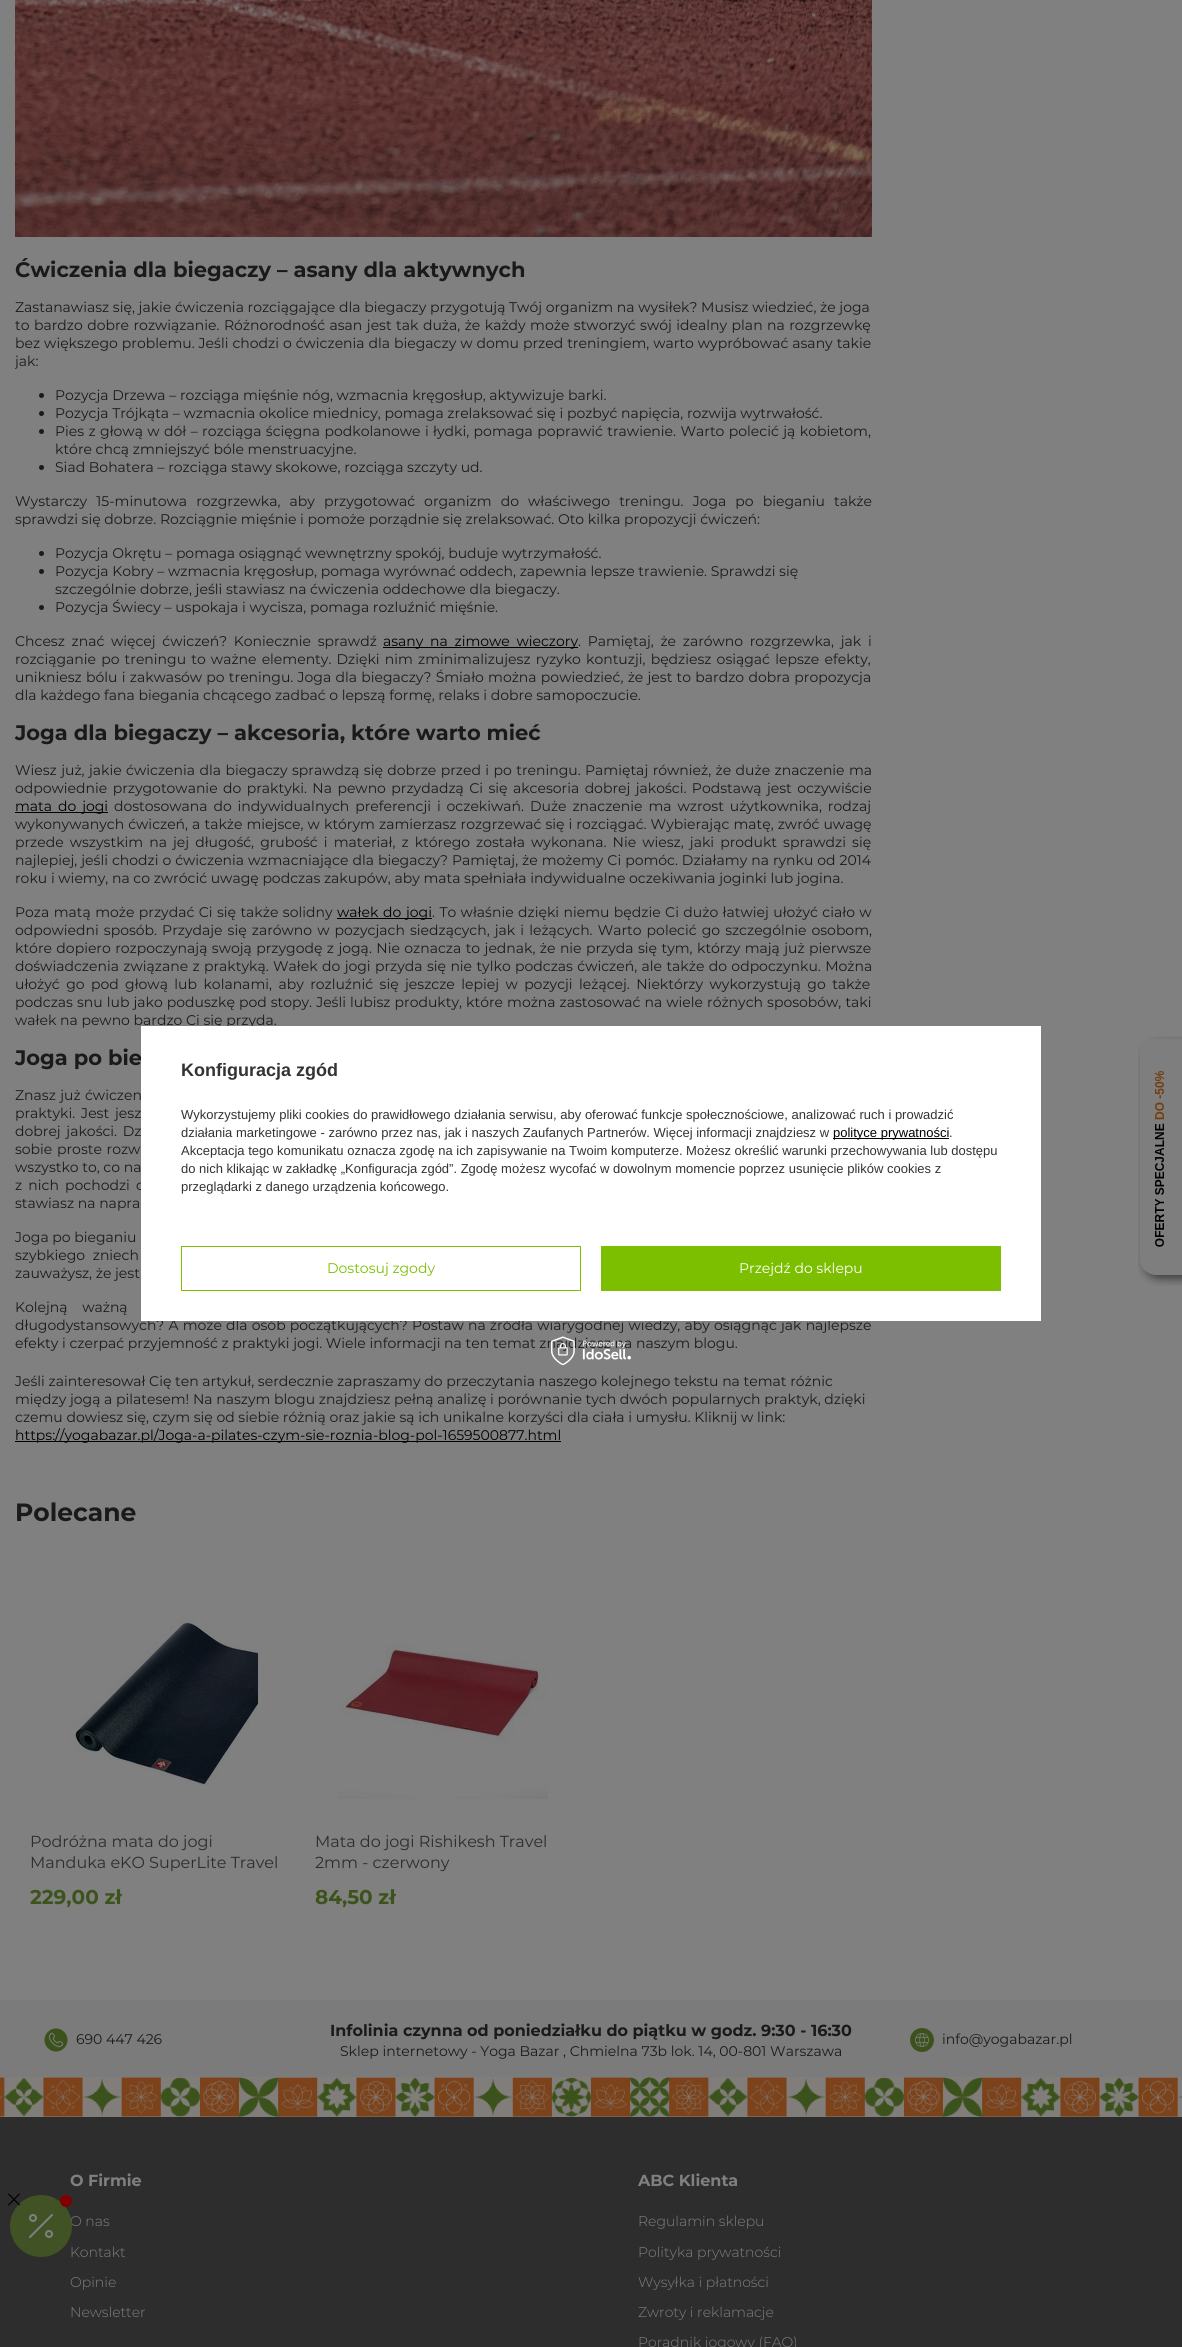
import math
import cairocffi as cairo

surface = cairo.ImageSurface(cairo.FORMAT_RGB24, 1182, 2347)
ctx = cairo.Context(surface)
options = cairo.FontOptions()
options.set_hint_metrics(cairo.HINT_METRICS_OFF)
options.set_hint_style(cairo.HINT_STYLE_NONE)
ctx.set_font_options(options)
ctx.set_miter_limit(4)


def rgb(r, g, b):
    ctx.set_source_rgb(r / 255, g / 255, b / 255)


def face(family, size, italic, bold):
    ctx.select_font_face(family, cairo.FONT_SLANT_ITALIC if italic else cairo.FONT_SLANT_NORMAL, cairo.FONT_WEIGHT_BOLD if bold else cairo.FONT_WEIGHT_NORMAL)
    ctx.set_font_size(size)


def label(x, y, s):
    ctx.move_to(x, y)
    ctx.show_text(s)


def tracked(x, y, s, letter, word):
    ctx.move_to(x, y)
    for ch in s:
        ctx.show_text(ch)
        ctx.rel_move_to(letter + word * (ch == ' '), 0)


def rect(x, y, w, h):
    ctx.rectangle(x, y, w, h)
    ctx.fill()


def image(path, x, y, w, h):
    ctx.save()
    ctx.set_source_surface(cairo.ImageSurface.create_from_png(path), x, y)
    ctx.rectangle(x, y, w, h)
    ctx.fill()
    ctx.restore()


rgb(128, 128, 128)
ctx.paint()
image('image0.png', 15, 0, 857, 237)
face('Montserrat', 21, 0, 1)
rgb(26, 26, 26)
label(15, 277, 'Ćwiczenia dla biegaczy – asany dla aktywnych')
face('Montserrat', 14, 0, 0)
label(15, 312, 'Zastanawiasz się, jakie ćwiczenia rozciągające dla biegaczy przygotują Twój organizm na wysiłek? Musisz wiedzieć, że joga')
tracked(15, 330, 'to bardzo dobre rozwiązanie. Różnorodność asan jest tak duża, że każdy może stworzyć swój idealny plan na rozgrzewkę', 0, 0.8)
tracked(15, 348, 'bez większego problemu. Jeśli chodzi o ćwiczenia dla biegaczy w domu przed treningiem, warto wypróbować asany takie', 0, 0.3)
ctx.save()
ctx.rectangle(15, 0, 857, 1464)
ctx.clip()
label(15, 366, 'jak:')
ctx.restore()
ctx.new_path()
ctx.arc(41.5, 395.5, 2.5, 0, 2 * math.pi)
ctx.fill()
label(55, 400, 'Pozycja Drzewa – rozciąga mięśnie nóg, wzmacnia kręgosłup, aktywizuje barki.')
ctx.new_path()
ctx.arc(41.5, 413.5, 2.5, 0, 2 * math.pi)
ctx.fill()
label(55, 418, 'Pozycja Trójkąta – wzmacnia okolice miednicy, pomaga zrelaksować się i pozbyć napięcia, rozwija wytrwałość.')
ctx.new_path()
ctx.arc(41.5, 431.5, 2.5, 0, 2 * math.pi)
ctx.fill()
tracked(55, 436, 'Pies z głową w dół – rozciąga ścięgna podkolanowe i łydki, pomaga poprawić trawienie. Warto polecić ją kobietom,', 0, 0.75)
label(55, 454, 'które chcą zmniejszyć bóle menstruacyjne.')
ctx.new_path()
ctx.arc(41.5, 467.5, 2.5, 0, 2 * math.pi)
ctx.fill()
label(55, 472, 'Siad Bohatera – rozciąga stawy skokowe, rozciąga szczyty ud.')
tracked(15, 506, 'Wystarczy 15-minutowa rozgrzewka, aby przygotować organizm do właściwego treningu. Joga po bieganiu także', 0, 5.4)
label(15, 524, 'sprawdzi się dobrze. Rozciągnie mięśnie i pomoże porządnie się zrelaksować. Oto kilka propozycji ćwiczeń:')
ctx.new_path()
ctx.arc(41.5, 553.5, 2.5, 0, 2 * math.pi)
ctx.fill()
label(55, 558, 'Pozycja Okrętu – pomaga osiągnąć wewnętrzny spokój, buduje wytrzymałość.')
ctx.new_path()
ctx.arc(41.5, 571.5, 2.5, 0, 2 * math.pi)
ctx.fill()
label(55, 576, 'Pozycja Kobry – wzmacnia kręgosłup, pomaga wyrównać oddech, zapewnia lepsze trawienie. Sprawdzi się')
label(55, 594, 'szczególnie dobrze, jeśli stawiasz na ćwiczenia oddechowe dla biegaczy.')
ctx.new_path()
ctx.arc(41.5, 607.5, 2.5, 0, 2 * math.pi)
ctx.fill()
label(55, 612, 'Pozycja Świecy – uspokaja i wycisza, pomaga rozluźnić mięśnie.')
tracked(15, 646, 'Chcesz znać więcej ćwiczeń? Koniecznie sprawdź', 0, 3)
rgb(0, 0, 0)
rect(383, 647, 195, 1)
tracked(383, 646, 'asany na zimowe wieczory', 0, 3)
rgb(26, 26, 26)
tracked(578, 646, '. Pamiętaj, że zarówno rozgrzewka, jak i', 0, 3)
tracked(15, 664, 'rozciąganie po treningu to ważne elementy. Dzięki nim zminimalizujesz ryzyko kontuzji, będziesz osiągać lepsze efekty,', 0, 1.5)
tracked(15, 682, 'unikniesz bólu i zakwasów po treningu. Joga dla biegaczy? Śmiało można powiedzieć, że jest to bardzo dobra propozycja', 0, 0.6)
label(15, 700, 'dla każdego fana biegania chcącego zadbać o lepszą formę, relaks i dobre samopoczucie.')
face('Montserrat', 21, 0, 1)
label(15, 740, 'Joga dla biegaczy – akcesoria, które warto mieć')
face('Montserrat', 14, 0, 0)
tracked(15, 775, 'Wiesz już, jakie ćwiczenia dla biegaczy sprawdzą się dobrze przed i po treningu. Pamiętaj również, że duże znaczenie ma', 0, 0.75)
tracked(15, 793, 'odpowiednie przygotowanie do praktyki. Na pewno przydadzą Ci się akcesoria dobrej jakości. Podstawą jest oczywiście', 0, 1.75)
rgb(0, 0, 0)
rect(15, 812, 93, 1)
tracked(15, 811, 'mata do jogi', 0, 2.25)
rgb(26, 26, 26)
tracked(114, 811, 'dostosowana do indywidualnych preferencji i oczekiwań. Duże znaczenie ma wzrost użytkownika, rodzaj', 0, 2.25)
tracked(15, 829, 'wykonywanych ćwiczeń, a także miejsce, w którym zamierzasz rozgrzewać się i rozciągać. Wybierając matę, zwróć uwagę', 0, 0.4)
tracked(15, 847, 'przede wszystkim na jej długość, grubość i materiał, z którego została wykonana. Nie wiesz, jaki produkt sprawdzi się', 0, 2.4)
tracked(15, 865, 'najlepiej, jeśli chodzi o ćwiczenia wzmacniające dla biegaczy? Pamiętaj, że możemy Ci pomóc. Działamy na rynku od 2014', 0, 0.3)
label(15, 883, 'roku i wiemy, na co zwrócić uwagę podczas zakupów, aby mata spełniała indywidualne oczekiwania joginki lub jogina.')
tracked(15, 917, 'Poza matą może przydać Ci się także solidny', 0, 0.75)
rgb(0, 0, 0)
rect(337, 918, 95, 1)
tracked(337, 917, 'wałek do jogi', 0, 1)
rgb(26, 26, 26)
tracked(432, 917, '. To właśnie dzięki niemu będzie Ci dużo łatwiej ułożyć ciało w', 0, 0.75)
tracked(15, 935, 'odpowiedni sposób. Przydaje się zarówno w pozycjach siedzących, jak i leżących. Warto polecić go szczególnie osobom,', 0, 1.4)
tracked(15, 953, 'które dopiero rozpoczynają swoją przygodę z jogą. Nie oznacza to jednak, że nie przyda się tym, którzy mają już pierwsze', 0, 0.75)
tracked(15, 971, 'doświadczenia związane z praktyką. Wałek do jogi przyda się nie tylko podczas ćwiczeń, ale także do odpoczynku. Można', 0, 0.7)
tracked(15, 989, 'ułożyć go pod głową lub kolanami, aby rozluźnić się jeszcze lepiej w pozycji leżącej. Niektórzy wykorzystują go także', 0, 2.75)
tracked(15, 1007, 'podczas snu lub jako poduszkę pod stopy. Jeśli lubisz produkty, które można zastosować na wiele różnych sposobów, taki', 0, 0.4)
label(15, 1025, 'wałek na pewno bardzo Ci się przyda.')
face('Montserrat', 21, 0, 1)
label(15, 1065, 'Joga po bie')
face('Montserrat', 14, 0, 0)
tracked(15, 1100, 'Znasz już ćwiczen', 0, 0.7)
tracked(15, 1118, 'praktyki. Jest jesz', 0, 2.25)
tracked(15, 1136, 'dobrej jakości. Dz', 0, 2)
tracked(15, 1154, 'sobie proste rozw', 0, 1)
label(15, 1172, 'wszystko to, co na')
tracked(15, 1190, 'z nich pochodzi o', 0, 2.5)
label(15, 1208, 'stawiasz na napra')
label(15, 1242, 'Joga po bieganiu')
tracked(15, 1260, 'szybkiego zniech', 0, 4)
label(15, 1278, 'zauważysz, że jest')
tracked(15, 1312, 'Kolejną ważną', 0, 11)
tracked(15, 1330, 'długodystansowych? A może dla osób początkujących? Postaw na źródła wiarygodnej wiedzy, aby osiągnąć jak najlepsze', 0, 0.5)
label(15, 1348, 'efekty i czerpać przyjemność z praktyki jogi. Wiele informacji na ten temat znajdziesz na naszym blogu.')
label(15, 1386, 'Jeśli zainteresował Cię ten artykuł, serdecznie zapraszamy do przeczytania naszego kolejnego tekstu na temat różnic')
label(15, 1404, 'między jogą a pilatesem! Na naszym blogu znajdziesz pełną analizę i porównanie tych dwóch popularnych praktyk, dzięki')
label(15, 1422, 'czemu dowiesz się, czym się od siebie różnią oraz jakie są ich unikalne korzyści dla ciała i umysłu. Kliknij w link:')
rgb(0, 0, 0)
rect(15, 1441, 546, 1)
label(15, 1440, 'https://yogabazar.pl/Joga-a-pilates-czym-sie-roznia-blog-pol-1659500877.html')
face('Montserrat', 25, 0, 1)
rgb(26, 26, 26)
label(15, 1521, 'Polecane')
image('image1.png', 74, 1617, 184, 168)
face('Montserrat', 16, 0, 0)
rgb(45, 45, 45)
label(30, 1847, 'Podróżna mata do jogi')
label(30, 1868, 'Manduka eKO SuperLite Travel')
face('Montserrat', 20, 0, 1)
rgb(60, 83, 28)
label(30, 1904, '229,00 zł')
image('image2.png', 338, 1645, 210, 154)
face('Montserrat', 16, 0, 0)
rgb(45, 45, 45)
label(315, 1847, 'Mata do jogi Rishikesh Travel')
label(315, 1868, '2mm - czerwony')
face('Montserrat', 20, 0, 1)
rgb(60, 83, 28)
label(315, 1904, '84,50 zł')
image('image3.png', 1138, 1036, 44, 250)
rgb(255, 255, 255)
rect(141, 1026, 900, 295)
face('Liberation Sans', 18, 0, 1)
rgb(51, 51, 51)
label(181, 1076, 'Konfiguracja zgód')
face('Liberation Sans', 13, 0, 0)
label(181, 1119, 'Wykorzystujemy pliki cookies do prawidłowego działania serwisu, aby oferować funkcje społecznościowe, analizować ruch i prowadzić')
label(181, 1137, 'działania marketingowe - zarówno przez nas, jak i naszych Zaufanych Partnerów. Więcej informacji znajdziesz w')
rgb(0, 0, 0)
rect(833, 1138, 116, 1)
label(833, 1137, 'polityce prywatności')
rgb(51, 51, 51)
label(949, 1137, '.')
label(181, 1155, 'Akceptacja tego komunikatu oznacza zgodę na ich zapisywanie na Twoim komputerze. Możesz określić warunki przechowywania lub dostępu')
label(181, 1173, 'do nich klikając w zakładkę „Konfiguracja zgód”. Zgodę możesz wycofać w dowolnym momencie poprzez usunięcie plików cookies z')
label(181, 1191, 'przeglądarki z danego urządzenia końcowego.')
ctx.rectangle(181.5, 1246.5, 399, 44)
rgb(124, 191, 0)
ctx.set_line_width(1)
ctx.stroke()
face('Montserrat', 14, 0, 0)
label(327, 1273, 'Dostosuj zgody')
rect(601, 1246, 400, 45)
rgb(255, 255, 255)
label(739, 1273, 'Przejdź do sklepu')
image('image4.png', 551, 1336, 80, 29)
rgb(45, 45, 45)
rect(0, 2117, 1182, 230)
face('Montserrat Light', 14, 0, 0)
rgb(128, 128, 128)
label(70, 2226, 'O nas')
label(70, 2257, 'Kontakt')
rgb(65, 82, 37)
ctx.new_path()
ctx.arc(41, 2226, 31, 0, 2 * math.pi)
ctx.fill()
image('image5.png', 8, 2193, 12, 13)
rgb(128, 0, 0)
ctx.arc(66, 2201, 6, 0, 2 * math.pi)
ctx.fill()
image('image6.png', 29, 2214, 24, 24)
rgb(123, 123, 123)
rect(0, 2000, 1182, 77)
image('image7.png', 44, 2028, 24, 24)
face('Montserrat', 14, 0, 0)
rgb(26, 26, 26)
label(76, 2044, '690 447 426')
face('Montserrat', 16, 0, 1)
label(330, 2036, 'Infolinia czynna od poniedziałku do piątku w godz. 9:30 - 16:30')
face('Montserrat', 14, 0, 0)
label(340, 2056, 'Sklep internetowy - Yoga Bazar , Chmielna 73b lok. 14, 00-801 Warszawa')
image('image8.png', 910, 2028, 24, 24)
label(942, 2044, 'info@yogabazar.pl')
image('image9.png', 0, 2077, 1182, 40)
face('Montserrat', 16, 0, 1)
rgb(128, 128, 128)
label(70, 2186, 'O Firmie')
face('Montserrat Light', 14, 0, 0)
label(70, 2287, 'Opinie')
label(70, 2317, 'Newsletter')
face('Montserrat', 16, 0, 1)
label(638, 2186, 'ABC Klienta')
face('Montserrat Light', 14, 0, 0)
label(638, 2226, 'Regulamin sklepu')
label(638, 2257, 'Polityka prywatności')
label(638, 2287, 'Wysyłka i płatności')
label(638, 2317, 'Zwroty i reklamacje')
label(638, 2347, 'Poradnik jogowy (FAQ)')
surface.write_to_png('render.png')
